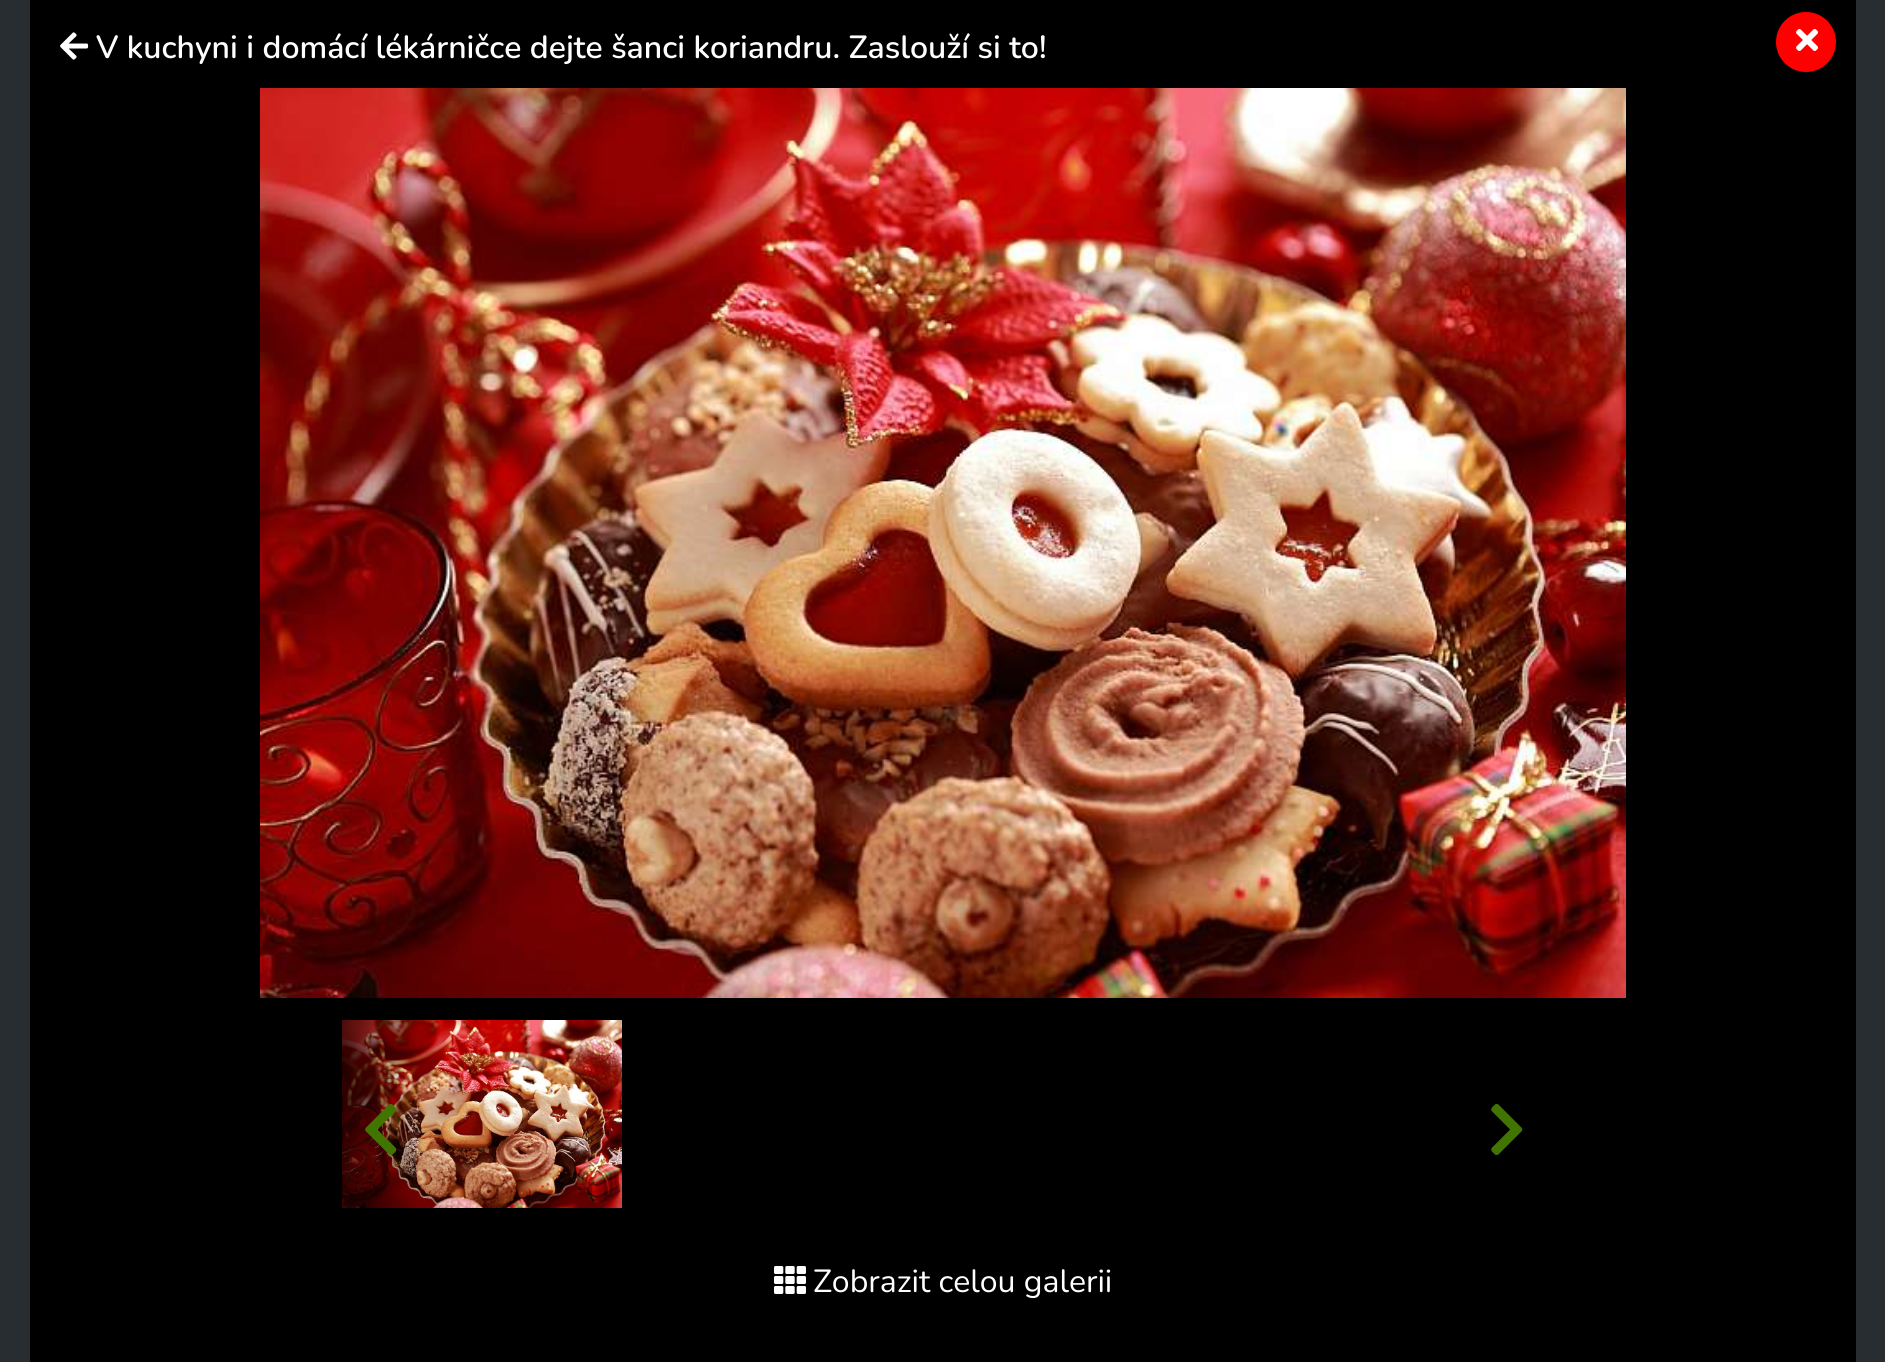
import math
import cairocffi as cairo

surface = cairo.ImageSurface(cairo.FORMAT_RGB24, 1885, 1362)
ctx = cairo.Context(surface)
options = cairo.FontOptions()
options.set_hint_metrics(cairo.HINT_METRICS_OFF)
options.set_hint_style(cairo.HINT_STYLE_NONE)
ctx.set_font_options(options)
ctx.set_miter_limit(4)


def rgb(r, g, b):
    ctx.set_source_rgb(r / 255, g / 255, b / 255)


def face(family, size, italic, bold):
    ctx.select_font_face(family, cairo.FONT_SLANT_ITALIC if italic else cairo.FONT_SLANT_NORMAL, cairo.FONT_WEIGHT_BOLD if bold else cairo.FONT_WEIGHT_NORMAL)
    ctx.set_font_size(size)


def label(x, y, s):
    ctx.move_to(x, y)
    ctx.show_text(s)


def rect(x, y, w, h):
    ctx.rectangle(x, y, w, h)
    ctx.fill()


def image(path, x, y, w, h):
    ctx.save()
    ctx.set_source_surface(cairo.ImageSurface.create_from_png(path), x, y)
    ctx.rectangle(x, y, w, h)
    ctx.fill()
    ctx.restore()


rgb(40, 45, 50)
ctx.paint()
rgb(0, 0, 0)
rect(30, 0, 1826, 1362)
image('image0.png', 60, 32, 29, 28)
face('Nunito SemiBold', 32, 0, 0)
rgb(255, 255, 255)
label(96, 58, 'V kuchyni i domácí lékárničce dejte šanci koriandru. Zaslouží si to!')
rgb(255, 0, 0)
ctx.new_path()
ctx.arc(1806, 42, 30, 0, 2 * math.pi)
ctx.fill()
image('image1.png', 1796, 29, 22, 22)
image('image2.png', 260, 88, 1366, 910)
image('image3.png', 342, 1020, 280, 188)
gradient = cairo.LinearGradient(340, 1133, 420, 1133)
gradient.add_color_stop_rgba(0, 0, 0, 0, 0.65)
gradient.add_color_stop_rgba(1, 0, 0, 0, 0)
ctx.set_source(gradient)
rect(342, 1020, 75, 188)
image('image4.png', 365, 1104, 32, 51)
image('image5.png', 1491, 1104, 32, 51)
image('image6.png', 774, 1266, 32, 28)
face('Nunito', 32, 0, 0)
rgb(255, 255, 255)
label(813, 1292, 'Zobrazit celou galerii')
surface.write_to_png('render.png')
